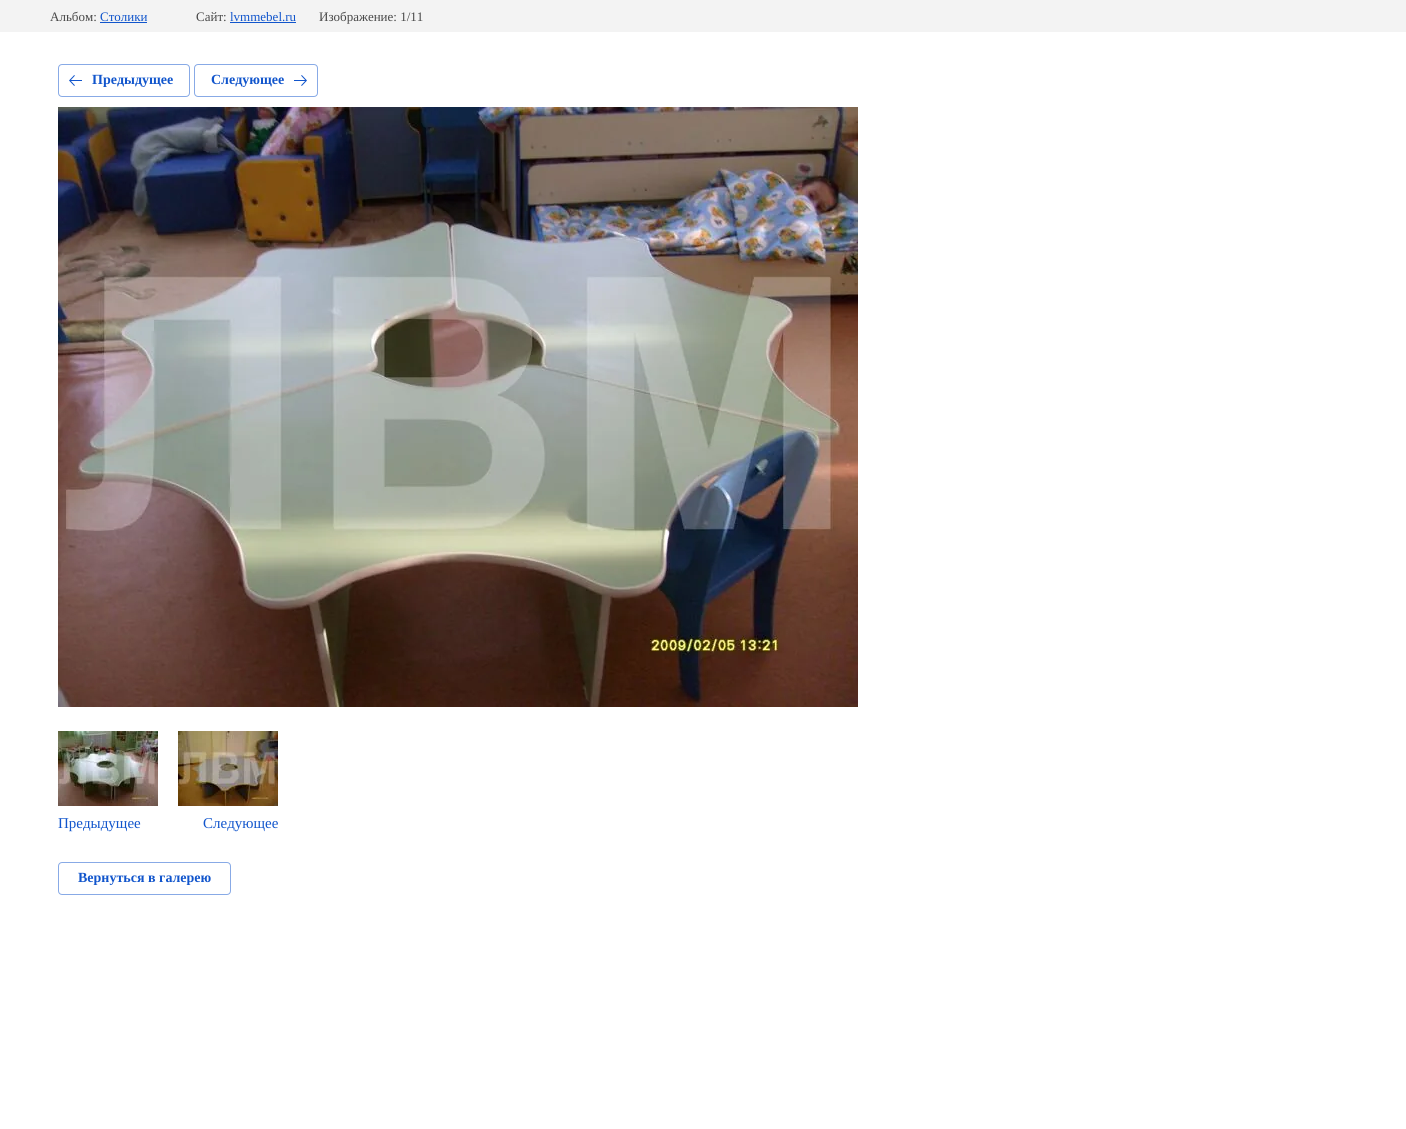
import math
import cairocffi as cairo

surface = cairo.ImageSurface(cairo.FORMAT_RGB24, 1406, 1129)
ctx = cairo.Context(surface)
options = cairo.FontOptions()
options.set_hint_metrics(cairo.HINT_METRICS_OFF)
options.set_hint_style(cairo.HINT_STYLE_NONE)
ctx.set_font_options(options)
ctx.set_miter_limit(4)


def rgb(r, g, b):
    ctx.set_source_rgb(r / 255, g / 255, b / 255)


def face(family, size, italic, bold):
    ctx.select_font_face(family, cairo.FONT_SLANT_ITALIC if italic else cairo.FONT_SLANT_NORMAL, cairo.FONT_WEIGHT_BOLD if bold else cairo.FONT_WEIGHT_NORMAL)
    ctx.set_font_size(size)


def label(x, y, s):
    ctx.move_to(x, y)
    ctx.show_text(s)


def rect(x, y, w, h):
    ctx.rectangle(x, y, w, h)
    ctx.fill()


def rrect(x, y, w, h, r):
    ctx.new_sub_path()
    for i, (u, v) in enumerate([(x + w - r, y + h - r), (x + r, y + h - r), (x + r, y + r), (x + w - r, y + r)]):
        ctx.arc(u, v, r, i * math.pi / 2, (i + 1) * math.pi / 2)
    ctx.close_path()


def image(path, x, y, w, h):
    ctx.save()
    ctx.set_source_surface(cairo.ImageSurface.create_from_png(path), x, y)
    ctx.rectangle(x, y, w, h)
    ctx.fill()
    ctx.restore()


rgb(255, 255, 255)
ctx.paint()
rgb(243, 243, 243)
rect(0, 0, 1406, 32)
face('Liberation Serif', 13, 0, 0)
rgb(72, 72, 72)
label(50, 21, 'Альбом:')
rgb(17, 85, 204)
label(100, 21, 'Столики')
rect(100, 22, 47, 1)
rgb(72, 72, 72)
label(196, 21, 'Сайт:')
rgb(17, 85, 204)
label(230, 21, 'lvmmebel.ru')
rect(230, 22, 66, 1)
rgb(72, 72, 72)
label(319, 21, 'Изображение: 1/11')
rrect(58.5, 64.5, 131, 32, 3.5)
rgb(136, 170, 230)
ctx.set_line_width(1)
ctx.stroke()
image('image0.png', 69, 75, 13, 11)
face('Liberation Serif', 14, 0, 1)
rgb(17, 85, 204)
label(92, 84, 'Предыдущее')
rrect(194.5, 64.5, 123, 32, 3.5)
rgb(136, 170, 230)
ctx.stroke()
rgb(17, 85, 204)
label(211, 84, 'Следующее')
image('image1.png', 294, 75, 13, 11)
image('image2.png', 58, 107, 800, 600)
image('image3.png', 58, 731, 100, 75)
face('Liberation Serif', 15, 0, 0)
label(58, 828, 'Предыдущее')
image('image4.png', 178, 731, 100, 75)
label(203, 828, 'Следующее')
rrect(58.5, 862.5, 172, 32, 3.5)
rgb(136, 170, 230)
ctx.stroke()
face('Liberation Serif', 14, 0, 1)
rgb(17, 85, 204)
label(78, 882, 'Вернуться в галерею')
surface.write_to_png('render.png')
